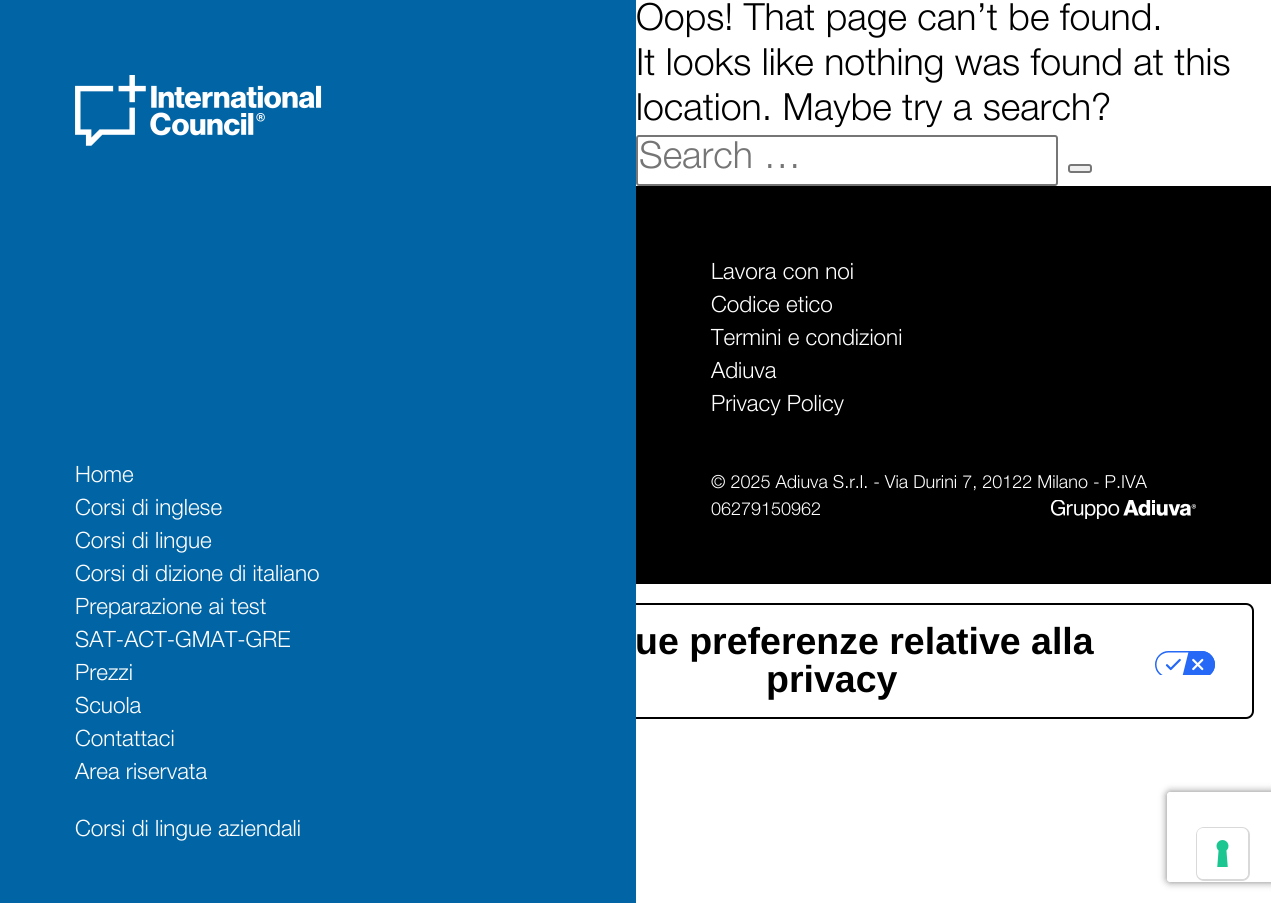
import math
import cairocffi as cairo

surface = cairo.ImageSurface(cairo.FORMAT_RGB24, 1271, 903)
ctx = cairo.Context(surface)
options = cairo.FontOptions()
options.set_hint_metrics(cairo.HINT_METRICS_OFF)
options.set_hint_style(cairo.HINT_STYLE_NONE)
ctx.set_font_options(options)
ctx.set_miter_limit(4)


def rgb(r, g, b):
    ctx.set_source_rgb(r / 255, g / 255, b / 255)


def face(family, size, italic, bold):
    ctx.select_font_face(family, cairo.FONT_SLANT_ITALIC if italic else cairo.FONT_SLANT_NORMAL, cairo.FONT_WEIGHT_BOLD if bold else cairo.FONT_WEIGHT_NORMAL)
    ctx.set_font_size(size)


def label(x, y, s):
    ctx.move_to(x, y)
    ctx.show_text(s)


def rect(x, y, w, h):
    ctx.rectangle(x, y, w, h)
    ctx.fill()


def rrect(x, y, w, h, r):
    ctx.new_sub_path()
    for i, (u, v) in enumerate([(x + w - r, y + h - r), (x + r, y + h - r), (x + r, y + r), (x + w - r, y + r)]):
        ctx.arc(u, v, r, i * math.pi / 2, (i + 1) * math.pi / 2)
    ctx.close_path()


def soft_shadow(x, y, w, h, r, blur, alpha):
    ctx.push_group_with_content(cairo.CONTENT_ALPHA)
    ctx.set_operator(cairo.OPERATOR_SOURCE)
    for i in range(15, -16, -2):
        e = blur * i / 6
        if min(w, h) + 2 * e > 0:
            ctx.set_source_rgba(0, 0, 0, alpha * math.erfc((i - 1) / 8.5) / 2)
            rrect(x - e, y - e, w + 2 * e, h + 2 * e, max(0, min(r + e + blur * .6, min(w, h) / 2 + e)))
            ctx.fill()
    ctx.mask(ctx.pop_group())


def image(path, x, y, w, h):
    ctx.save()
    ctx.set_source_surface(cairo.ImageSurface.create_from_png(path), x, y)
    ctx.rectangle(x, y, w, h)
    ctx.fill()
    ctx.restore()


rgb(255, 255, 255)
ctx.paint()
face('Helvetica Neue Light', 37.5, 0, 0)
rgb(0, 0, 0)
label(636, 30, 'Oops! That page can’t be found.')
label(636, 75, 'It looks like nothing was found at this')
label(636, 120, 'location. Maybe try a search?')
rrect(637, 136, 420, 49, 2)
rgb(118, 118, 118)
ctx.stroke()
rgb(117, 117, 117)
label(639, 168, 'Search …')
rgb(239, 239, 239)
rrect(1069, 165, 22, 7, 2)
ctx.fill_preserve()
rgb(118, 118, 118)
ctx.stroke()
rgb(0, 0, 0)
rect(636, 186, 635, 398)
face('Helvetica Neue Light', 22.5, 0, 0)
rgb(255, 255, 255)
label(711, 279, 'Lavora con noi')
label(711, 312, 'Codice etico')
label(711, 345, 'Termini e condizioni')
label(711, 378, 'Adiuva')
label(711, 411, 'Privacy Policy')
face('Helvetica Neue Light', 18, 0, 0)
label(711, 488, '© 2025 Adiuva S.r.l. - Via Durini 7, 20122 Milano - P.IVA')
label(711, 515, '06279150962')
image('image0.png', 1050, 500, 146, 19)
rrect(21, 604, 1232, 114, 7)
rgb(0, 0, 0)
ctx.stroke()
rgb(1, 100, 165)
rect(0, 0, 636, 903)
image('image1.png', 75, 75, 247, 71)
face('Helvetica Neue Light', 22.5, 0, 0)
rgb(255, 255, 255)
label(75, 482, 'Home')
label(75, 515, 'Corsi di inglese')
label(75, 548, 'Corsi di lingue')
label(75, 581, 'Corsi di dizione di italiano')
label(75, 614, 'Preparazione ai test')
label(75, 647, 'SAT-ACT-GMAT-GRE')
label(75, 680, 'Prezzi')
label(75, 713, 'Scuola')
label(75, 746, 'Contattaci')
label(75, 779, 'Area riservata')
label(75, 836, 'Corsi di lingue aziendali')
face('Liberation Sans', 37.5, 0, 1)
rgb(0, 0, 0)
label(635, 654, 'ue preferenze relative alla')
image('image2.png', 1155, 651, 60, 24)
label(766, 692, 'privacy')
ctx.save()
ctx.set_fill_rule(cairo.FILL_RULE_EVEN_ODD)
ctx.new_path()
ctx.move_to(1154, 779)
ctx.line_to(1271, 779)
ctx.line_to(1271, 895)
ctx.line_to(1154, 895)
ctx.close_path()
ctx.move_to(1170, 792)
ctx.line_to(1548, 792)
ctx.curve_to(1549.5, 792, 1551, 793.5, 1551, 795)
ctx.line_to(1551, 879)
ctx.curve_to(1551, 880.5, 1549.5, 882, 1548, 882)
ctx.line_to(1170, 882)
ctx.curve_to(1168.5, 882, 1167, 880.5, 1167, 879)
ctx.line_to(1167, 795)
ctx.curve_to(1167, 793.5, 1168.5, 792, 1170, 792)
ctx.close_path()
ctx.clip()
rgb(128, 128, 128)
soft_shadow(1167, 792, 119, 90, 3, 4, 1)
ctx.restore()
rrect(1197, 828, 52, 52, 7)
rgb(217, 217, 217)
ctx.stroke()
rgb(255, 255, 255)
rrect(1197, 828, 51, 51, 6)
ctx.fill()
image('image3.png', 1216, 840, 13, 27)
surface.write_to_png('render.png')
